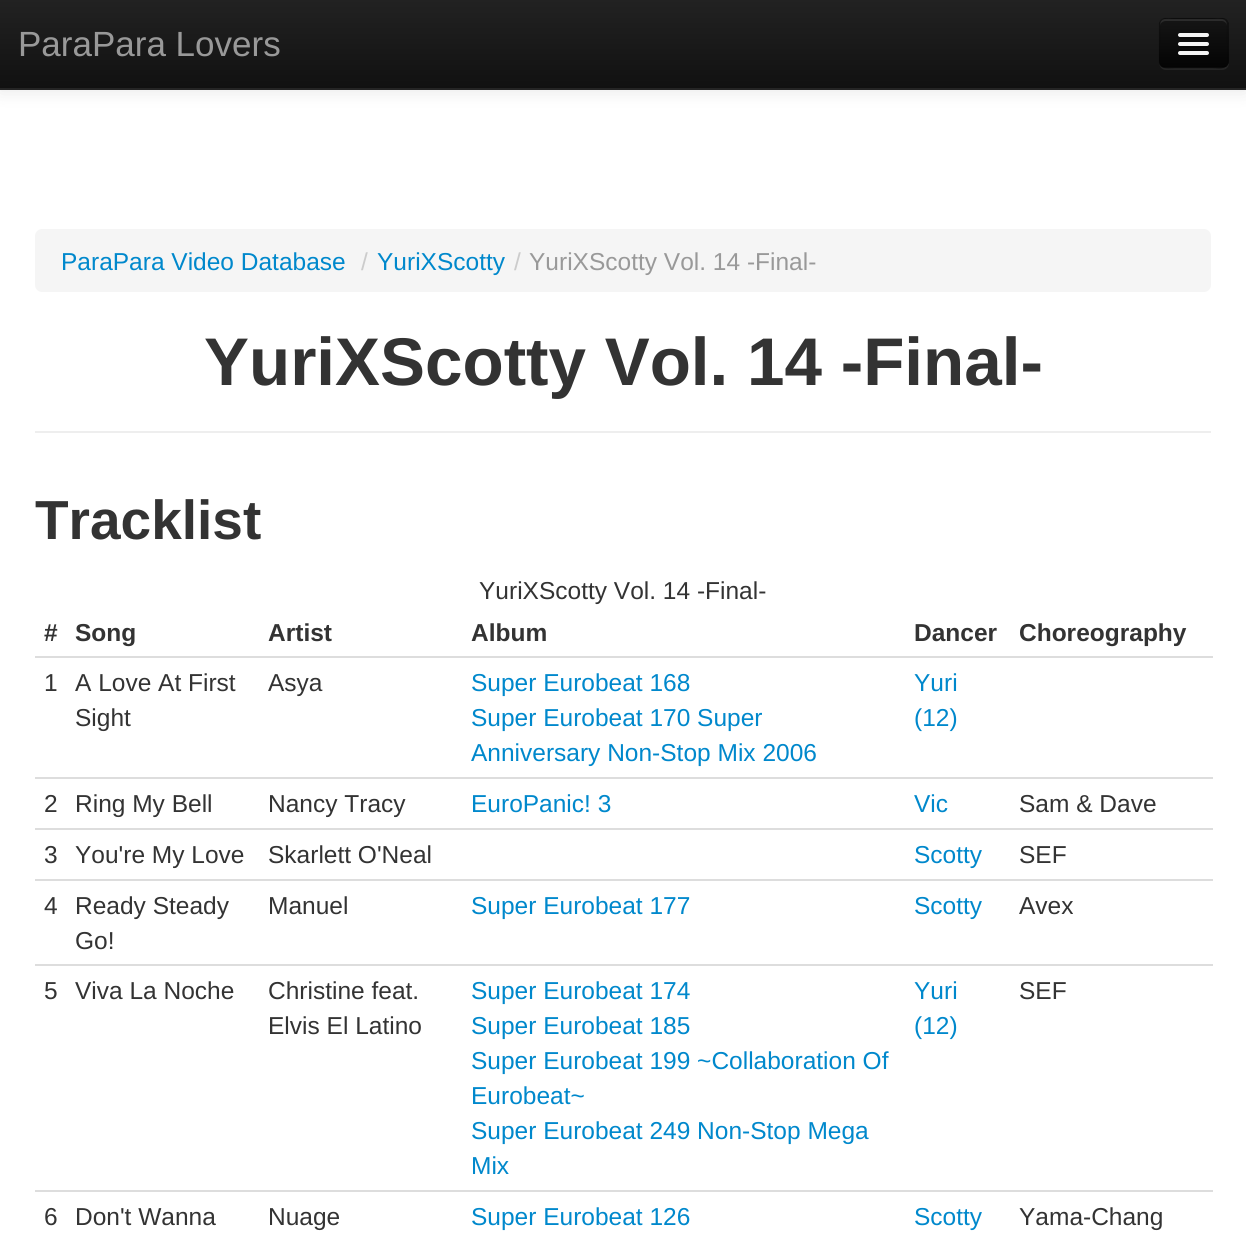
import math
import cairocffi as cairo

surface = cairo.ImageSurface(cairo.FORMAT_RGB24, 1246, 1239)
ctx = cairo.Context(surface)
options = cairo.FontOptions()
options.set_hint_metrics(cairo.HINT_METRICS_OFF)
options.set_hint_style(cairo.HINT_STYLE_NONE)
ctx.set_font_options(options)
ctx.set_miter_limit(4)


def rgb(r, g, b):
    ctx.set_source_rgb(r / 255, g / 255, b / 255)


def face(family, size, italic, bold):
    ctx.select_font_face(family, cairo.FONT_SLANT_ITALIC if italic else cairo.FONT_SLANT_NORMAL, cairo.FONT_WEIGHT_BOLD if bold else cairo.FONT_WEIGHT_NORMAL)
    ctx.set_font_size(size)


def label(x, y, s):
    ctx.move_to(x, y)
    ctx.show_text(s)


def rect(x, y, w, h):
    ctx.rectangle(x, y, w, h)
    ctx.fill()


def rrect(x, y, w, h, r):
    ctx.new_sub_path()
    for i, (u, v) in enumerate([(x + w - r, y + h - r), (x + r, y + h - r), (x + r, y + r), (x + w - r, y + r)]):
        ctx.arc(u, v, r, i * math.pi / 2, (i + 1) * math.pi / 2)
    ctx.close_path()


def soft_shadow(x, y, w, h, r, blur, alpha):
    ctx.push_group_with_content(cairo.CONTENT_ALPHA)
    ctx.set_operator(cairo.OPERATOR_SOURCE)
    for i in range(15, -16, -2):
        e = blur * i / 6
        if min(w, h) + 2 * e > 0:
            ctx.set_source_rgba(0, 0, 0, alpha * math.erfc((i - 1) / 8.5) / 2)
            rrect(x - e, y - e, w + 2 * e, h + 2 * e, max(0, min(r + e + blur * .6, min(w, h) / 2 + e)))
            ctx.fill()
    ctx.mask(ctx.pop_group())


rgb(255, 255, 255)
ctx.paint()
rgb(0, 0, 0)
soft_shadow(0, 2, 1246, 89, 0, 9, 0.1)
gradient = cairo.LinearGradient(623, 0, 623, 88)
gradient.add_color_stop_rgba(0, 0.133, 0.133, 0.133, 1)
gradient.add_color_stop_rgba(1, 0.067, 0.067, 0.067, 1)
ctx.set_source(gradient)
rect(0, 0, 1246, 88)
rgb(37, 37, 37)
rect(0, 88, 1246, 2)
face('Liberation Sans', 35, 0, 0)
rgb(153, 153, 153)
label(18, 56, 'ParaPara Lovers')
ctx.set_source_rgba(1, 1, 1, 0.07)
ctx.new_path()
ctx.move_to(1159, 64)
ctx.curve_to(1160, 67, 1162, 70, 1166, 70)
ctx.line_to(1222, 70)
ctx.curve_to(1226, 70, 1229, 67, 1229, 63)
ctx.line_to(1229, 26)
ctx.line_to(1228, 23)
ctx.line_to(1228, 63)
ctx.line_to(1227, 65)
ctx.curve_to(1224, 70, 1217, 68, 1212, 68)
ctx.line_to(1175, 68)
ctx.curve_to(1170, 68, 1162, 70, 1159, 64)
ctx.close_path()
ctx.fill()
rgb(14, 14, 14)
rrect(1159, 18, 70, 50, 7)
ctx.fill()
ctx.save()
rrect(1159, 18, 70, 50, 7)
ctx.clip()
gradient = cairo.LinearGradient(1194, 19, 1194, 67)
gradient.add_color_stop_rgba(0, 0.082, 0.082, 0.082, 1)
gradient.add_color_stop_rgba(1, 0.016, 0.016, 0.016, 1)
ctx.set_source(gradient)
rect(1159, 19, 70, 48)
ctx.restore()
rgb(44, 44, 44)
ctx.new_path()
ctx.move_to(1166, 21)
ctx.line_to(1222, 21)
ctx.curve_to(1224, 21, 1227, 23, 1227, 26)
ctx.curve_to(1227, 17, 1220, 19, 1212, 19)
ctx.line_to(1174, 19)
ctx.curve_to(1167, 19, 1160, 17, 1160, 26)
ctx.curve_to(1160, 23, 1163, 21, 1166, 21)
ctx.close_path()
ctx.fill()
ctx.new_path()
ctx.move_to(1226, 65.5)
ctx.curve_to(1224.5, 66.5, 1223, 67.5, 1221.5, 67.5)
ctx.line_to(1165.5, 67.5)
ctx.curve_to(1164, 67.5, 1162.5, 66.5, 1161, 65.5)
ctx.set_source_rgba(0, 0, 0, 0.25)
ctx.set_line_width(1.8)
ctx.stroke()
ctx.new_path()
ctx.move_to(1161, 65.5)
ctx.curve_to(1160, 64.5, 1159.5, 63, 1159.5, 61)
ctx.line_to(1159.5, 24.5)
ctx.curve_to(1159.5, 23, 1160, 21.5, 1161, 20)
ctx.curve_to(1162.5, 19, 1164, 18.5, 1165.5, 18.5)
ctx.line_to(1221.5, 18.5)
ctx.curve_to(1223, 18.5, 1224.5, 19, 1226, 20)
ctx.curve_to(1227, 21.5, 1227.5, 23, 1227.5, 24.5)
ctx.line_to(1227.5, 61)
ctx.curve_to(1227.5, 63, 1227, 64.5, 1226, 65.5)
ctx.set_source_rgba(0, 0, 0, 0.1)
ctx.stroke()
rgb(11, 11, 11)
ctx.new_path()
ctx.move_to(1178, 36)
ctx.curve_to(1176.5, 40, 1183.5, 39, 1184.5, 39)
ctx.line_to(1202.5, 39)
ctx.curve_to(1203.5, 39, 1210.5, 40, 1209, 36)
ctx.line_to(1207.5, 36.5)
ctx.line_to(1179.5, 36.5)
ctx.close_path()
ctx.fill()
rgb(245, 245, 245)
rrect(1178, 33, 31, 4, 2)
ctx.fill()
rgb(8, 8, 8)
ctx.new_path()
ctx.move_to(1178.5, 45)
ctx.curve_to(1176, 49, 1184, 48, 1184.5, 48)
ctx.line_to(1202.5, 48)
ctx.curve_to(1203, 48, 1211, 49, 1208.5, 45)
ctx.line_to(1207.5, 45.5)
ctx.line_to(1179.5, 45.5)
ctx.close_path()
ctx.fill()
rgb(245, 245, 245)
rrect(1178, 42, 31, 4, 2)
ctx.fill()
rrect(1178, 51, 31, 4, 2)
ctx.fill()
rrect(35, 229, 1176, 63, 7)
ctx.fill()
face('Liberation Sans', 24.5, 0, 0)
rgb(0, 136, 204)
label(61, 270, 'ParaPara Video Database')
rgb(204, 204, 204)
label(361, 270, '/')
rgb(0, 136, 204)
label(377, 270, 'YuriXScotty')
rgb(204, 204, 204)
label(514, 270, '/')
rgb(153, 153, 153)
label(529, 270, 'YuriXScotty Vol. 14 -Final-')
rgb(238, 238, 238)
rect(35, 431, 1176, 2)
face('Liberation Sans', 67.4, 0, 1)
rgb(51, 51, 51)
label(204, 385, 'YuriXScotty Vol. 14 -Final-')
face('Liberation Sans', 55, 0, 1)
label(35, 539, 'Tracklist')
face('Liberation Sans', 24.5, 0, 0)
label(479, 599, 'YuriXScotty Vol. 14 -Final-')
face('Liberation Sans', 24.5, 0, 1)
label(44, 641, '#')
label(75, 641, 'Song')
label(268, 641, 'Artist')
label(471, 641, 'Album')
label(914, 641, 'Dancer')
label(1019, 641, 'Choreography')
rgb(221, 221, 221)
rect(35, 656, 1178, 2)
face('Liberation Sans', 24.5, 0, 0)
rgb(51, 51, 51)
label(44, 691, '1')
label(75, 691, 'A Love At First')
label(75, 726, 'Sight')
label(268, 691, 'Asya')
rgb(0, 136, 204)
label(471, 691, 'Super Eurobeat 168')
label(471, 726, 'Super Eurobeat 170 Super')
label(471, 761, 'Anniversary Non-Stop Mix 2006')
label(914, 691, 'Yuri')
label(914, 726, '(12)')
rgb(51, 51, 51)
label(44, 812, '2')
label(75, 812, 'Ring My Bell')
label(268, 812, 'Nancy Tracy')
rgb(0, 136, 204)
label(471, 812, 'EuroPanic! 3')
label(914, 812, 'Vic')
rgb(221, 221, 221)
rect(35, 777, 1178, 2)
rgb(51, 51, 51)
label(1019, 812, 'Sam & Dave')
label(44, 863, '3')
label(75, 863, 'You\'re My Love')
label(268, 863, 'Skarlett O\'Neal')
rgb(0, 136, 204)
label(914, 863, 'Scotty')
rgb(221, 221, 221)
rect(35, 828, 1178, 2)
rgb(51, 51, 51)
label(1019, 863, 'SEF')
label(44, 914, '4')
label(75, 914, 'Ready Steady')
label(75, 949, 'Go!')
label(268, 914, 'Manuel')
rgb(0, 136, 204)
label(471, 914, 'Super Eurobeat 177')
label(914, 914, 'Scotty')
rgb(221, 221, 221)
rect(35, 879, 1178, 2)
rgb(51, 51, 51)
label(1019, 914, 'Avex')
label(44, 999, '5')
label(75, 999, 'Viva La Noche')
label(268, 999, 'Christine feat.')
label(268, 1034, 'Elvis El Latino')
rgb(0, 136, 204)
label(471, 999, 'Super Eurobeat 174')
label(471, 1034, 'Super Eurobeat 185')
label(471, 1069, 'Super Eurobeat 199 ~Collaboration Of')
label(471, 1104, 'Eurobeat~')
label(471, 1139, 'Super Eurobeat 249 Non-Stop Mega')
label(471, 1174, 'Mix')
label(914, 999, 'Yuri')
label(914, 1034, '(12)')
rgb(221, 221, 221)
rect(35, 964, 1178, 2)
rgb(51, 51, 51)
label(1019, 999, 'SEF')
label(44, 1225, '6')
label(75, 1225, 'Don\'t Wanna')
label(268, 1225, 'Nuage')
rgb(0, 136, 204)
label(471, 1225, 'Super Eurobeat 126')
label(914, 1225, 'Scotty')
rgb(221, 221, 221)
rect(35, 1190, 1178, 2)
rgb(51, 51, 51)
label(1019, 1225, 'Yama-Chang')
surface.write_to_png('render.png')
